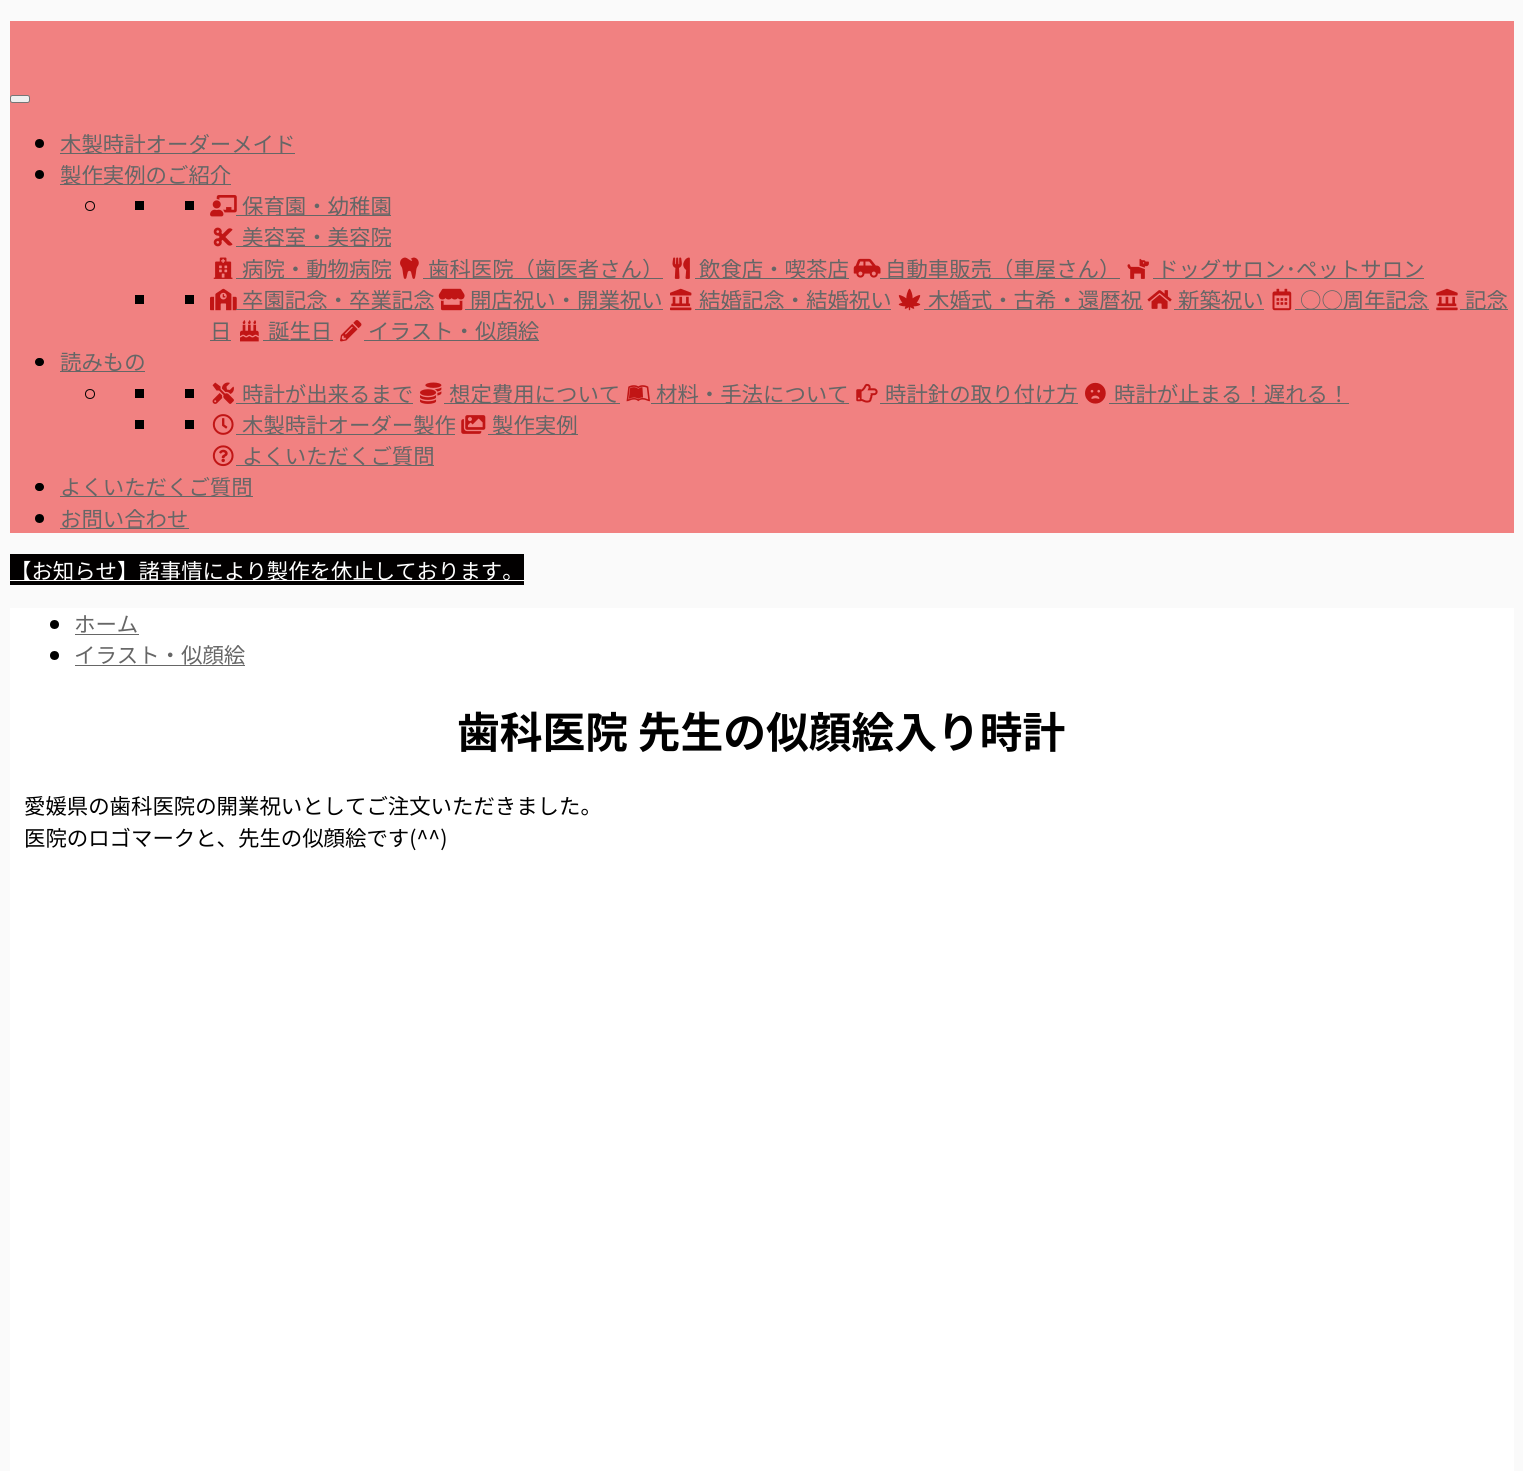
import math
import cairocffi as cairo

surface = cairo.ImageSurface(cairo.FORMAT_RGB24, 1523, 1471)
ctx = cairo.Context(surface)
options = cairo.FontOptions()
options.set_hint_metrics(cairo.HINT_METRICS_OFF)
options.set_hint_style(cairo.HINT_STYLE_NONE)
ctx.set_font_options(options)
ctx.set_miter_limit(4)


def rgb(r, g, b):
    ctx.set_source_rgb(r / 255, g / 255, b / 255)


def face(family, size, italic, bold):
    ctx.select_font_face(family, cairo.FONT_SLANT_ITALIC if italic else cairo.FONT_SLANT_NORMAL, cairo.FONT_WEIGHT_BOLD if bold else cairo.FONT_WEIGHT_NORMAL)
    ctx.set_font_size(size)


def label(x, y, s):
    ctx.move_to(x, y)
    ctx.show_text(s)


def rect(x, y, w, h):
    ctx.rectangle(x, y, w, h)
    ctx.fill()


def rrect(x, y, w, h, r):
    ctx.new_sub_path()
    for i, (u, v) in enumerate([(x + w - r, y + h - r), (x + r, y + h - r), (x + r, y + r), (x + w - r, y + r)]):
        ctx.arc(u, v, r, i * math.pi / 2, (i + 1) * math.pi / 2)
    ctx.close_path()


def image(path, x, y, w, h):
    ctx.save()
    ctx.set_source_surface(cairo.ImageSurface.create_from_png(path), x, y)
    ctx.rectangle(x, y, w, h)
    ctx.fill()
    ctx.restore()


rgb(250, 250, 250)
ctx.paint()
rgb(241, 129, 129)
rect(10, 21, 1504, 512)
rgb(239, 239, 239)
rrect(10.5, 95.5, 19, 7, 2)
ctx.fill_preserve()
rgb(118, 118, 118)
ctx.set_line_width(1)
ctx.stroke()
rgb(0, 0, 0)
ctx.arc(39.5, 143.5, 4.5, 0, 2 * math.pi)
ctx.fill()
rgb(102, 102, 102)
rect(60, 153, 235, 1)
face('Noto Sans JP', 21.4, 0, 0)
label(60, 152, '木製時計オーダーメイド')
rgb(0, 0, 0)
ctx.new_path()
ctx.arc(39.5, 174.5, 4.5, 0, 2 * math.pi)
ctx.fill()
rgb(102, 102, 102)
rect(60, 184, 171, 1)
label(60, 183, '製作実例のご紹介')
ctx.new_path()
ctx.arc(90, 206, 4.5, 0, 2 * math.pi)
rgb(0, 0, 0)
ctx.stroke()
rect(135, 201, 9, 9)
rect(185, 201, 9, 9)
image('image0.png', 210, 195, 27, 22)
rgb(102, 102, 102)
rect(236, 215, 155, 1)
label(242, 214, '保育園・幼稚園')
image('image1.png', 213, 227, 20, 20)
rect(236, 246, 155, 1)
label(242, 245, '美容室・美容院')
image('image2.png', 213, 257, 20, 22)
rect(236, 278, 155, 1)
label(242, 277, '病院・動物病院')
image('image3.png', 400, 257, 19, 22)
rect(423, 278, 240, 1)
label(428, 277, '歯科医院（歯医者さん）')
image('image4.png', 672, 257, 18, 22)
rect(695, 278, 154, 1)
label(699, 277, '飲食店・喫茶店')
image('image5.png', 853, 258, 28, 20)
rect(880, 278, 240, 1)
label(885, 277, '自動車販売（車屋さん）')
image('image6.png', 1127, 258, 22, 21)
rect(1153, 278, 271, 1)
label(1157, 277, 'ドッグサロン･ペットサロン')
rgb(0, 0, 0)
rect(135, 295, 9, 9)
rect(185, 295, 9, 9)
image('image7.png', 1147, 290, 25, 19)
rgb(102, 102, 102)
rect(1174, 309, 90, 1)
label(1178, 308, '新築祝い')
image('image8.png', 1272, 288, 20, 23)
rect(1295, 309, 134, 1)
label(1300, 308, '○○周年記念')
image('image9.png', 1436, 288, 22, 23)
rect(1460, 309, 48, 1)
label(1465, 308, '記念')
rect(210, 340, 21, 1)
label(210, 339, '日')
image('image10.png', 210, 288, 27, 23)
rect(236, 309, 198, 1)
label(242, 308, '卒園記念・卒業記念')
image('image11.png', 438, 288, 27, 23)
rect(465, 309, 198, 1)
label(470, 308, '開店祝い・開業祝い')
image('image12.png', 670, 288, 22, 23)
rect(695, 309, 196, 1)
label(699, 308, '結婚記念・結婚祝い')
image('image13.png', 898, 288, 23, 23)
rect(924, 309, 219, 1)
label(928, 308, '木婚式・古希・還暦祝')
image('image14.png', 240, 320, 19, 22)
rect(263, 340, 70, 1)
label(268, 339, '誕生日')
image('image15.png', 340, 320, 22, 22)
rect(364, 340, 175, 1)
label(368, 339, 'イラスト・似顔絵')
rgb(0, 0, 0)
rrect(35, 358, 9, 8, 4)
ctx.fill()
rgb(102, 102, 102)
rect(60, 371, 85, 1)
label(60, 370, '読みもの')
ctx.new_path()
ctx.arc(90, 394, 4.5, 0, 2 * math.pi)
rgb(0, 0, 0)
ctx.stroke()
rect(135, 389, 9, 9)
rect(185, 389, 9, 9)
image('image16.png', 212, 382, 22, 22)
rgb(102, 102, 102)
rect(236, 403, 177, 1)
label(242, 402, '時計が出来るまで')
image('image17.png', 420, 382, 22, 22)
rect(444, 403, 176, 1)
label(449, 402, '想定費用について')
image('image18.png', 626, 385, 24, 17)
rect(651, 403, 198, 1)
label(656, 402, '材料・手法について')
image('image19.png', 856, 383, 22, 20)
rect(880, 403, 198, 1)
label(885, 402, '時計針の取り付け方')
image('image20.png', 1085, 382, 21, 22)
rect(1109, 403, 240, 1)
label(1114, 402, '時計が止まる！遅れる！')
rgb(0, 0, 0)
rect(135, 420, 9, 9)
rect(185, 420, 9, 9)
image('image21.png', 212, 414, 22, 21)
rgb(102, 102, 102)
rect(236, 434, 219, 1)
label(242, 433, '木製時計オーダー製作')
image('image22.png', 461, 415, 25, 19)
rect(488, 434, 90, 1)
label(492, 433, '製作実例')
image('image23.png', 212, 445, 22, 22)
rect(236, 465, 198, 1)
label(242, 464, 'よくいただくご質問')
rgb(0, 0, 0)
rrect(35, 483, 9, 8, 4)
ctx.fill()
rgb(102, 102, 102)
rect(60, 496, 193, 1)
label(60, 495, 'よくいただくご質問')
rgb(0, 0, 0)
ctx.new_path()
ctx.arc(39.5, 518.5, 4.5, 0, 2 * math.pi)
ctx.fill()
rgb(102, 102, 102)
rect(60, 528, 129, 1)
label(60, 527, 'お問い合わせ')
rgb(2, 0, 0)
rect(10, 554, 514, 31)
rgb(255, 255, 255)
rect(10, 580, 514, 1)
label(10, 579, '【お知らせ】諸事情により製作を休止しております。')
rect(10, 608, 1504, 863)
rgb(0, 0, 0)
ctx.new_path()
ctx.arc(54.5, 624.5, 4.5, 0, 2 * math.pi)
ctx.fill()
rgb(102, 102, 102)
label(74, 632, 'ホーム')
rect(75, 634, 64, 1)
rgb(0, 0, 0)
ctx.new_path()
ctx.arc(54.5, 655.5, 4.5, 0, 2 * math.pi)
ctx.fill()
rgb(102, 102, 102)
label(74, 663, 'イラスト・似顔絵')
rect(75, 665, 170, 1)
face('Noto Sans JP', 42.75, 0, 1)
rgb(0, 0, 0)
label(457, 748, '歯科医院 先生の似顔絵入り時計')
face('Noto Sans JP', 21.4, 0, 0)
label(24, 814, '愛媛県の歯科医院の開業祝いとしてご注文いただきました。')
label(24, 846, '医院のロゴマークと、先生の似顔絵です(^^)')
surface.write_to_png('render.png')
